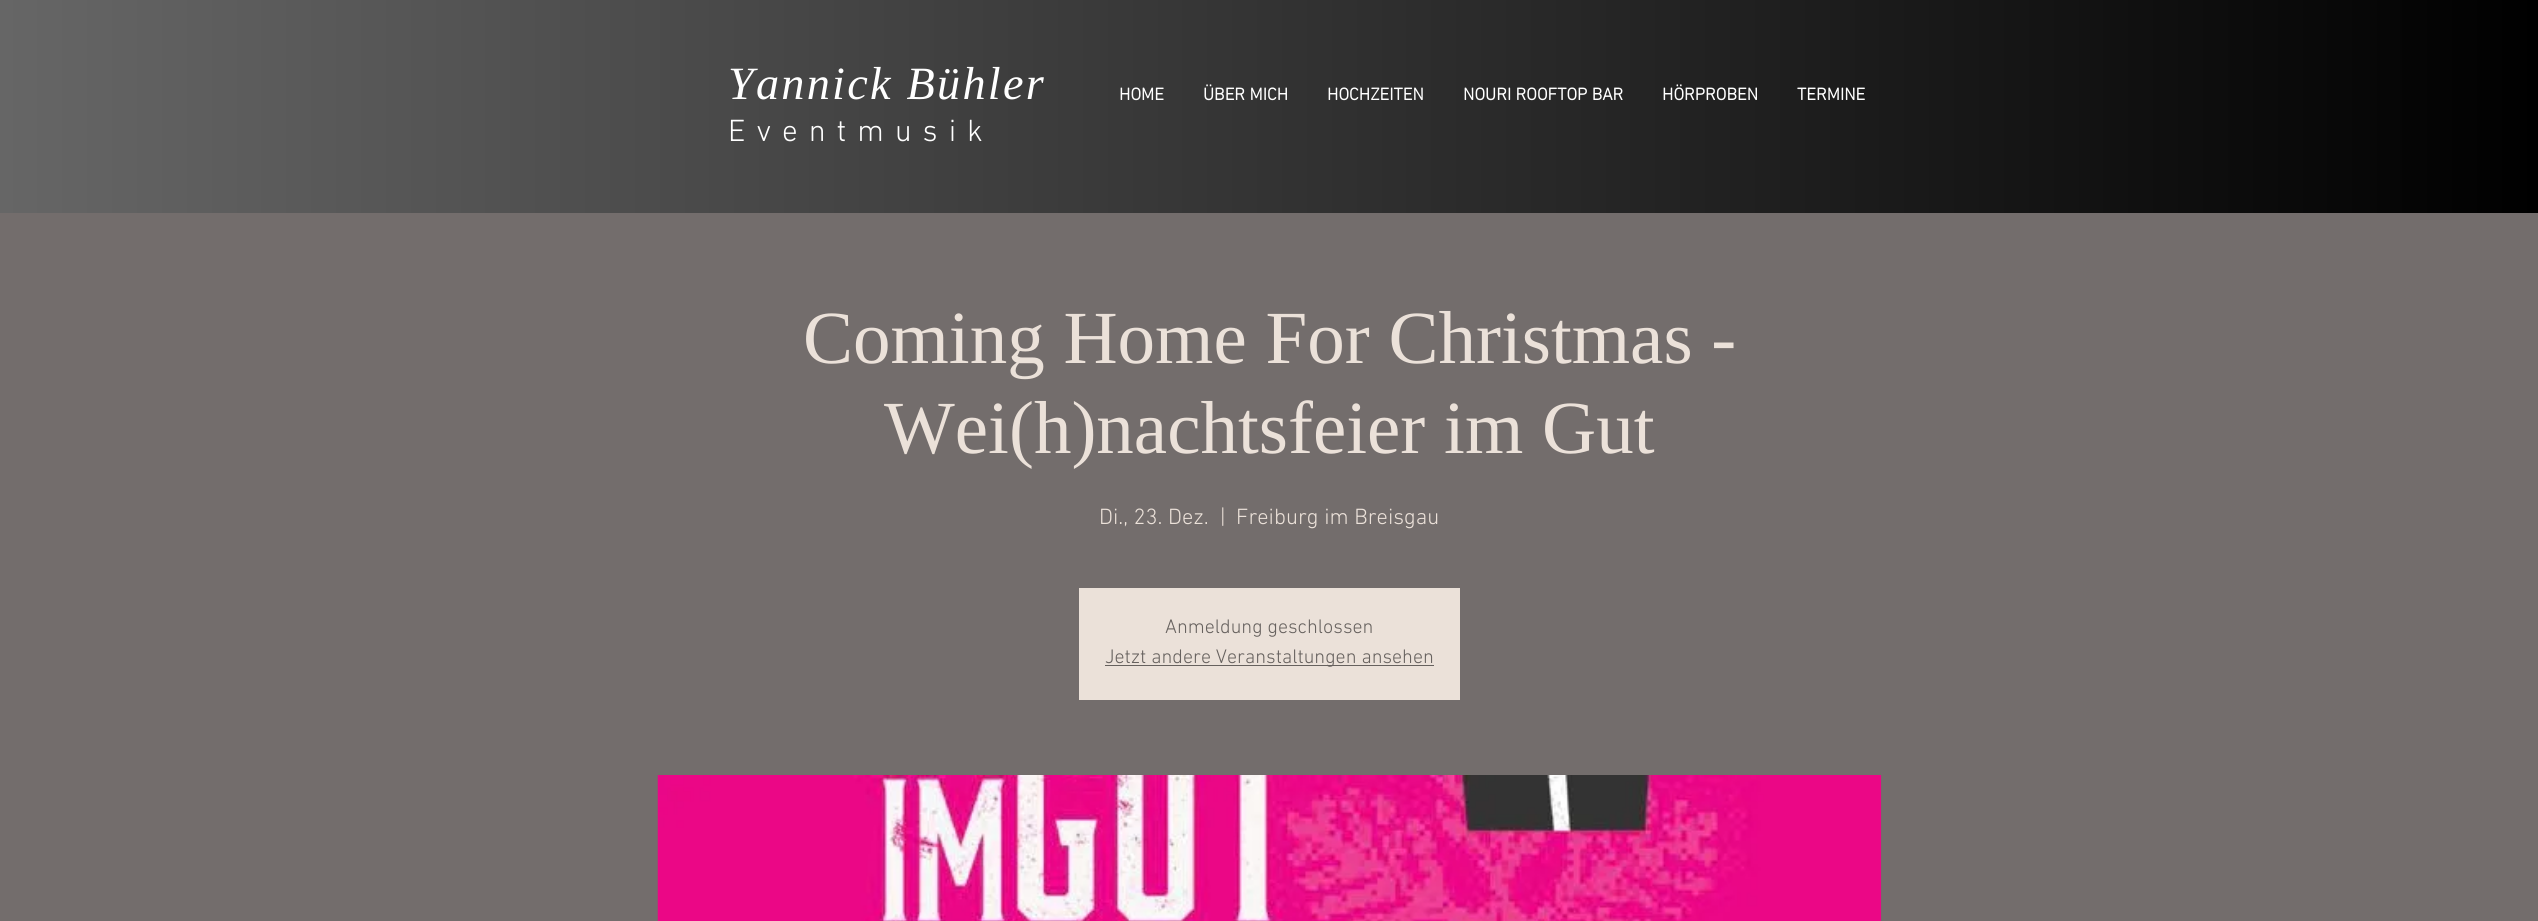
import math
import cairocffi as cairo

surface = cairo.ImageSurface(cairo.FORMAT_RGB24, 2538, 921)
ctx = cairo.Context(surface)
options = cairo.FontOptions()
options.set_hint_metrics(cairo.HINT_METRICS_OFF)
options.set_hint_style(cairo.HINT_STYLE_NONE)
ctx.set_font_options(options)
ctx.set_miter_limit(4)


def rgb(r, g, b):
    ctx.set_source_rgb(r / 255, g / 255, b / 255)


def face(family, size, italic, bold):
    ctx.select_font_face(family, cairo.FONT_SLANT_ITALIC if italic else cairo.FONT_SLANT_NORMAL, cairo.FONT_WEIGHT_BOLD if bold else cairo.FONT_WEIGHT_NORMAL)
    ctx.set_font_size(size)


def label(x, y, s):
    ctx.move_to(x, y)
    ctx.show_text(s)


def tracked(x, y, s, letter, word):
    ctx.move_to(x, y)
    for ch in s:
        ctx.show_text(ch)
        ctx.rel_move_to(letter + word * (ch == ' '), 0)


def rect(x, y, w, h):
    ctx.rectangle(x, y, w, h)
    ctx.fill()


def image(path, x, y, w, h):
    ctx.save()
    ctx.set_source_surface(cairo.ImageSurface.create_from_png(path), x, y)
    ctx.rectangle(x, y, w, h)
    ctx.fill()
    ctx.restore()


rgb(255, 255, 255)
ctx.paint()
gradient = cairo.LinearGradient(0, 106, 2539, 106)
gradient.add_color_stop_rgba(0, 0.4, 0.4, 0.4, 1)
gradient.add_color_stop_rgba(1, 0, 0, 0, 1)
ctx.set_source(gradient)
rect(0, 0, 2538, 213)
face('Liberation Serif', 46.25, 1, 0)
rgb(255, 255, 255)
tracked(728, 99, 'Yannick Bühler', 2.25, 0)
face('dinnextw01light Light', 31.25, 0, 0)
tracked(728, 141, 'Eventmusik', 11, 0)
face('dinnextw01light', 17.5, 0, 1)
label(1119, 100, 'HOME')
label(1203, 100, 'ÜBER MICH')
label(1327, 100, 'HOCHZEITEN')
label(1463, 100, 'NOURI ROOFTOP BAR')
label(1662, 100, 'HÖRPROBEN')
label(1797, 100, 'TERMINE')
rgb(115, 109, 108)
rect(0, 213, 2538, 708)
face('Liberation Serif', 75, 0, 0)
rgb(235, 225, 217)
label(803, 363, 'Coming Home For Christmas -')
label(884, 453, 'Wei(h)nachtsfeier im Gut')
face('dinnextw01light Light', 22.5, 0, 0)
label(1099, 524, 'Di., 23. Dez.')
label(1220, 524, '|')
label(1236, 524, 'Freiburg im Breisgau')
rect(1079, 588, 381, 112)
face('dinnextw01light Light', 20, 0, 0)
rgb(102, 97, 94)
label(1165, 633, 'Anmeldung geschlossen')
rect(1105, 665, 329, 1)
label(1105, 663, 'Jetzt andere Veranstaltungen ansehen')
image('image0.png', 657, 775, 1225, 146)
surface.write_to_png('render.png')
